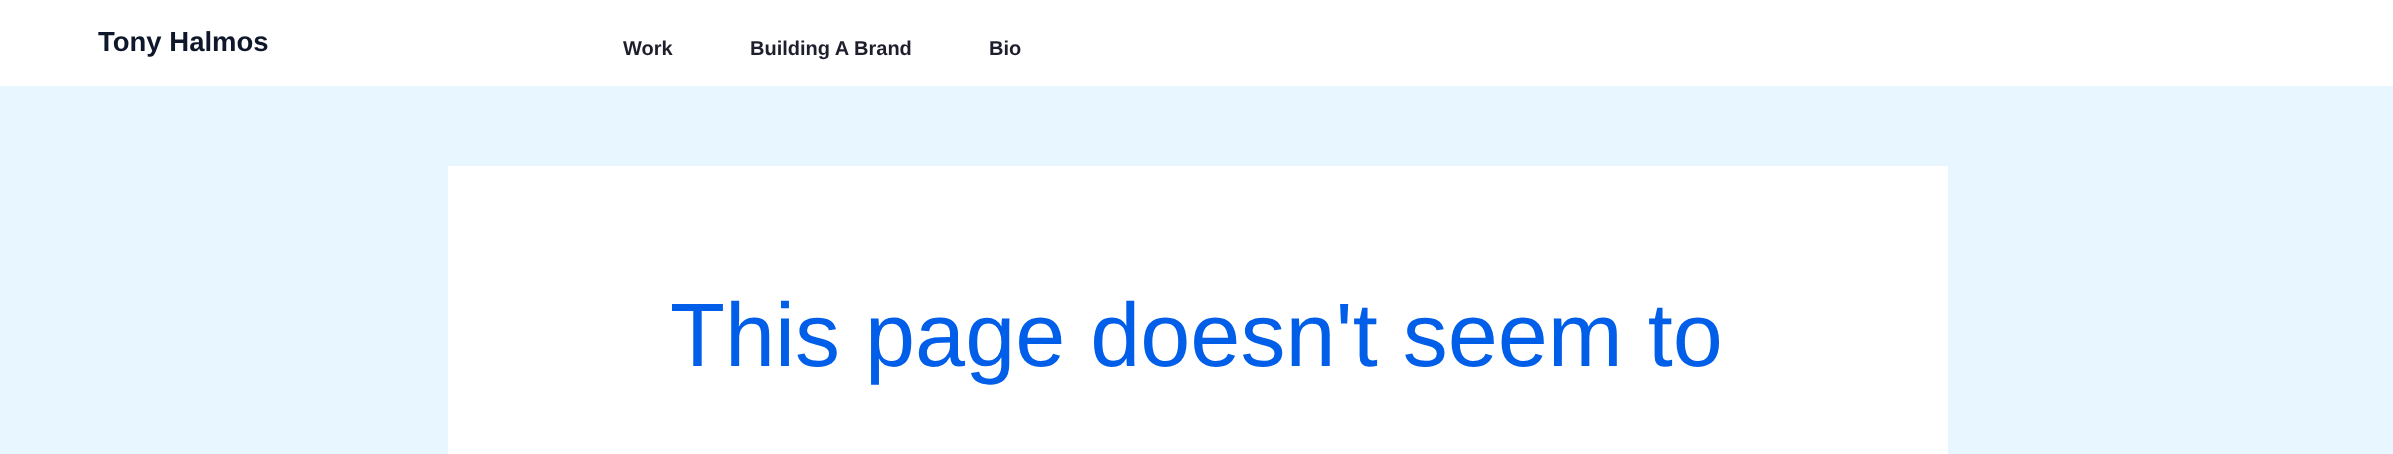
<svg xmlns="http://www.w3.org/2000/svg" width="2393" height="454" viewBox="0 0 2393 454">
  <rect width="100%" height="100%" fill="#e7f6ff"/>
  <rect x="0" y="0" width="2393" height="86" fill="#ffffff"/>
  <text x="98" y="51" font-family="Liberation Sans" font-size="27.5" font-weight="bold" fill="#0f172a">Tony Halmos</text>
  <text x="623" y="55" font-family="Liberation Sans" font-size="20" font-weight="bold" fill="#1e1e2d">Work</text>
  <text x="750" y="55" font-family="Liberation Sans" font-size="20" font-weight="bold" fill="#1e1e2d">Building A Brand</text>
  <text x="989" y="55" font-family="Liberation Sans" font-size="20" font-weight="bold" fill="#1e1e2d">Bio</text>
  <rect x="448" y="166" width="1500" height="288" fill="#ffffff"/>
  <text x="670" y="366" font-family="Liberation Sans" font-size="90" fill="#005ee9">This page doesn't seem to</text>
</svg>
